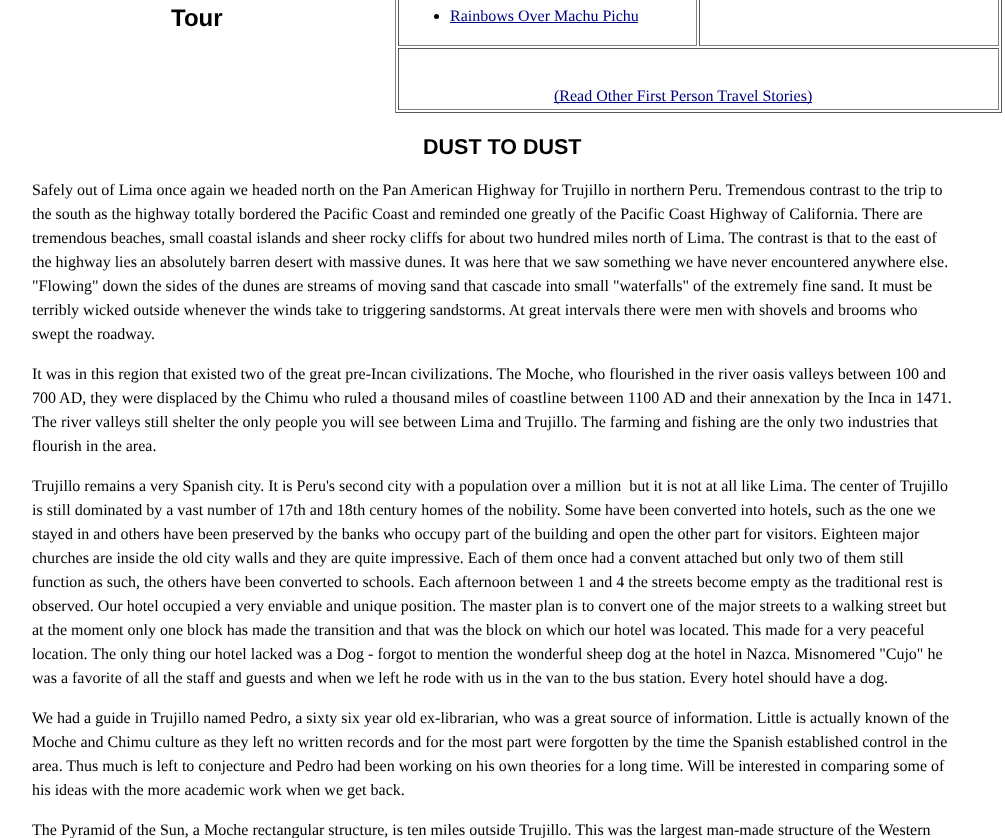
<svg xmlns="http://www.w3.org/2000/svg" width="1005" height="838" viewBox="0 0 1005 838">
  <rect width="100%" height="100%" fill="#ffffff"/>
  <text x="171" y="26" font-family="Liberation Sans" font-size="24" font-weight="bold" fill="#000000">Tour</text>
  <rect x="1001" y="0" width="1" height="113" fill="#555555"/>
  <rect x="395" y="112" width="607" height="1" fill="#555555"/>
  <rect x="395" y="0" width="1" height="113" fill="#808080"/>
  <rect x="696" y="0" width="1" height="46" fill="#808080"/>
  <rect x="398" y="45" width="299" height="1" fill="#808080"/>
  <rect x="398" y="0" width="1" height="46" fill="#555555"/>
  <circle cx="436.5" cy="16.5" r="2.5" fill="#000000"/>
  <text x="450" y="21" font-family="Liberation Serif" font-size="16" fill="#000080">Rainbows Over Machu Pichu</text>
  <rect x="450" y="22" width="188" height="1" fill="#000080"/>
  <rect x="998" y="0" width="1" height="46" fill="#808080"/>
  <rect x="699" y="45" width="300" height="1" fill="#808080"/>
  <rect x="699" y="0" width="1" height="46" fill="#555555"/>
  <rect x="398" y="48" width="601" height="1" fill="#555555"/>
  <rect x="998" y="48" width="1" height="62" fill="#808080"/>
  <rect x="398" y="109" width="601" height="1" fill="#808080"/>
  <rect x="398" y="48" width="1" height="62" fill="#555555"/>
  <rect x="554" y="102" width="258" height="1" fill="#000080"/>
  <text x="554" y="101" font-family="Liberation Serif" font-size="16" fill="#000080">(Read Other First Person Travel Stories)</text>
  <text x="423" y="154" font-family="Liberation Sans" font-size="21.5" font-weight="bold" fill="#000000">DUST TO DUST</text>
  <text x="32" y="195" font-family="Liberation Serif" font-size="16" fill="#000000">Safely out of Lima once again we headed north on the Pan American Highway for Trujillo in northern Peru. Tremendous contrast to the trip to</text>
  <text x="32" y="219" font-family="Liberation Serif" font-size="16" fill="#000000">the south as the highway totally bordered the Pacific Coast and reminded one greatly of the Pacific Coast Highway of California. There are</text>
  <text x="32" y="243" font-family="Liberation Serif" font-size="16" fill="#000000">tremendous beaches, small coastal islands and sheer rocky cliffs for about two hundred miles north of Lima. The contrast is that to the east of</text>
  <text x="32" y="267" font-family="Liberation Serif" font-size="16" fill="#000000">the highway lies an absolutely barren desert with massive dunes. It was here that we saw something we have never encountered anywhere else.</text>
  <text x="32" y="291" font-family="Liberation Serif" font-size="16" fill="#000000">"Flowing" down the sides of the dunes are streams of moving sand that cascade into small "waterfalls" of the extremely fine sand. It must be</text>
  <text x="32" y="315" font-family="Liberation Serif" font-size="16" fill="#000000">terribly wicked outside whenever the winds take to triggering sandstorms. At great intervals there were men with shovels and brooms who</text>
  <text x="32" y="339" font-family="Liberation Serif" font-size="16" fill="#000000">swept the roadway.</text>
  <text x="32" y="379" font-family="Liberation Serif" font-size="16" fill="#000000">It was in this region that existed two of the great pre-Incan civilizations. The Moche, who flourished in the river oasis valleys between 100 and</text>
  <text x="32" y="403" font-family="Liberation Serif" font-size="16" fill="#000000">700 AD, they were displaced by the Chimu who ruled a thousand miles of coastline between 1100 AD and their annexation by the Inca in 1471.</text>
  <text x="32" y="427" font-family="Liberation Serif" font-size="16" fill="#000000">The river valleys still shelter the only people you will see between Lima and Trujillo. The farming and fishing are the only two industries that</text>
  <text x="32" y="451" font-family="Liberation Serif" font-size="16" fill="#000000">flourish in the area.</text>
  <text x="32" y="491" font-family="Liberation Serif" font-size="16" fill="#000000" xml:space="preserve">Trujillo remains a very Spanish city. It is Peru's second city with a population over a million  but it is not at all like Lima. The center of Trujillo</text>
  <text x="32" y="515" font-family="Liberation Serif" font-size="16" fill="#000000">is still dominated by a vast number of 17th and 18th century homes of the nobility. Some have been converted into hotels, such as the one we</text>
  <text x="32" y="539" font-family="Liberation Serif" font-size="16" fill="#000000">stayed in and others have been preserved by the banks who occupy part of the building and open the other part for visitors. Eighteen major</text>
  <text x="32" y="563" font-family="Liberation Serif" font-size="16" fill="#000000">churches are inside the old city walls and they are quite impressive. Each of them once had a convent attached but only two of them still</text>
  <text x="32" y="587" font-family="Liberation Serif" font-size="16" fill="#000000">function as such, the others have been converted to schools. Each afternoon between 1 and 4 the streets become empty as the traditional rest is</text>
  <text x="32" y="611" font-family="Liberation Serif" font-size="16" fill="#000000">observed. Our hotel occupied a very enviable and unique position. The master plan is to convert one of the major streets to a walking street but</text>
  <text x="32" y="635" font-family="Liberation Serif" font-size="16" fill="#000000">at the moment only one block has made the transition and that was the block on which our hotel was located. This made for a very peaceful</text>
  <text x="32" y="659" font-family="Liberation Serif" font-size="16" fill="#000000">location. The only thing our hotel lacked was a Dog - forgot to mention the wonderful sheep dog at the hotel in Nazca. Misnomered "Cujo" he</text>
  <text x="32" y="683" font-family="Liberation Serif" font-size="16" fill="#000000">was a favorite of all the staff and guests and when we left he rode with us in the van to the bus station. Every hotel should have a dog.</text>
  <text x="32" y="723" font-family="Liberation Serif" font-size="16" fill="#000000">We had a guide in Trujillo named Pedro, a sixty six year old ex-librarian, who was a great source of information. Little is actually known of the</text>
  <text x="32" y="747" font-family="Liberation Serif" font-size="16" fill="#000000">Moche and Chimu culture as they left no written records and for the most part were forgotten by the time the Spanish established control in the</text>
  <text x="32" y="771" font-family="Liberation Serif" font-size="16" fill="#000000">area. Thus much is left to conjecture and Pedro had been working on his own theories for a long time. Will be interested in comparing some of</text>
  <text x="32" y="795" font-family="Liberation Serif" font-size="16" fill="#000000">his ideas with the more academic work when we get back.</text>
  <text x="32" y="835" font-family="Liberation Serif" font-size="16" fill="#000000">The Pyramid of the Sun, a Moche rectangular structure, is ten miles outside Trujillo. This was the largest man-made structure of the Western</text>
</svg>
